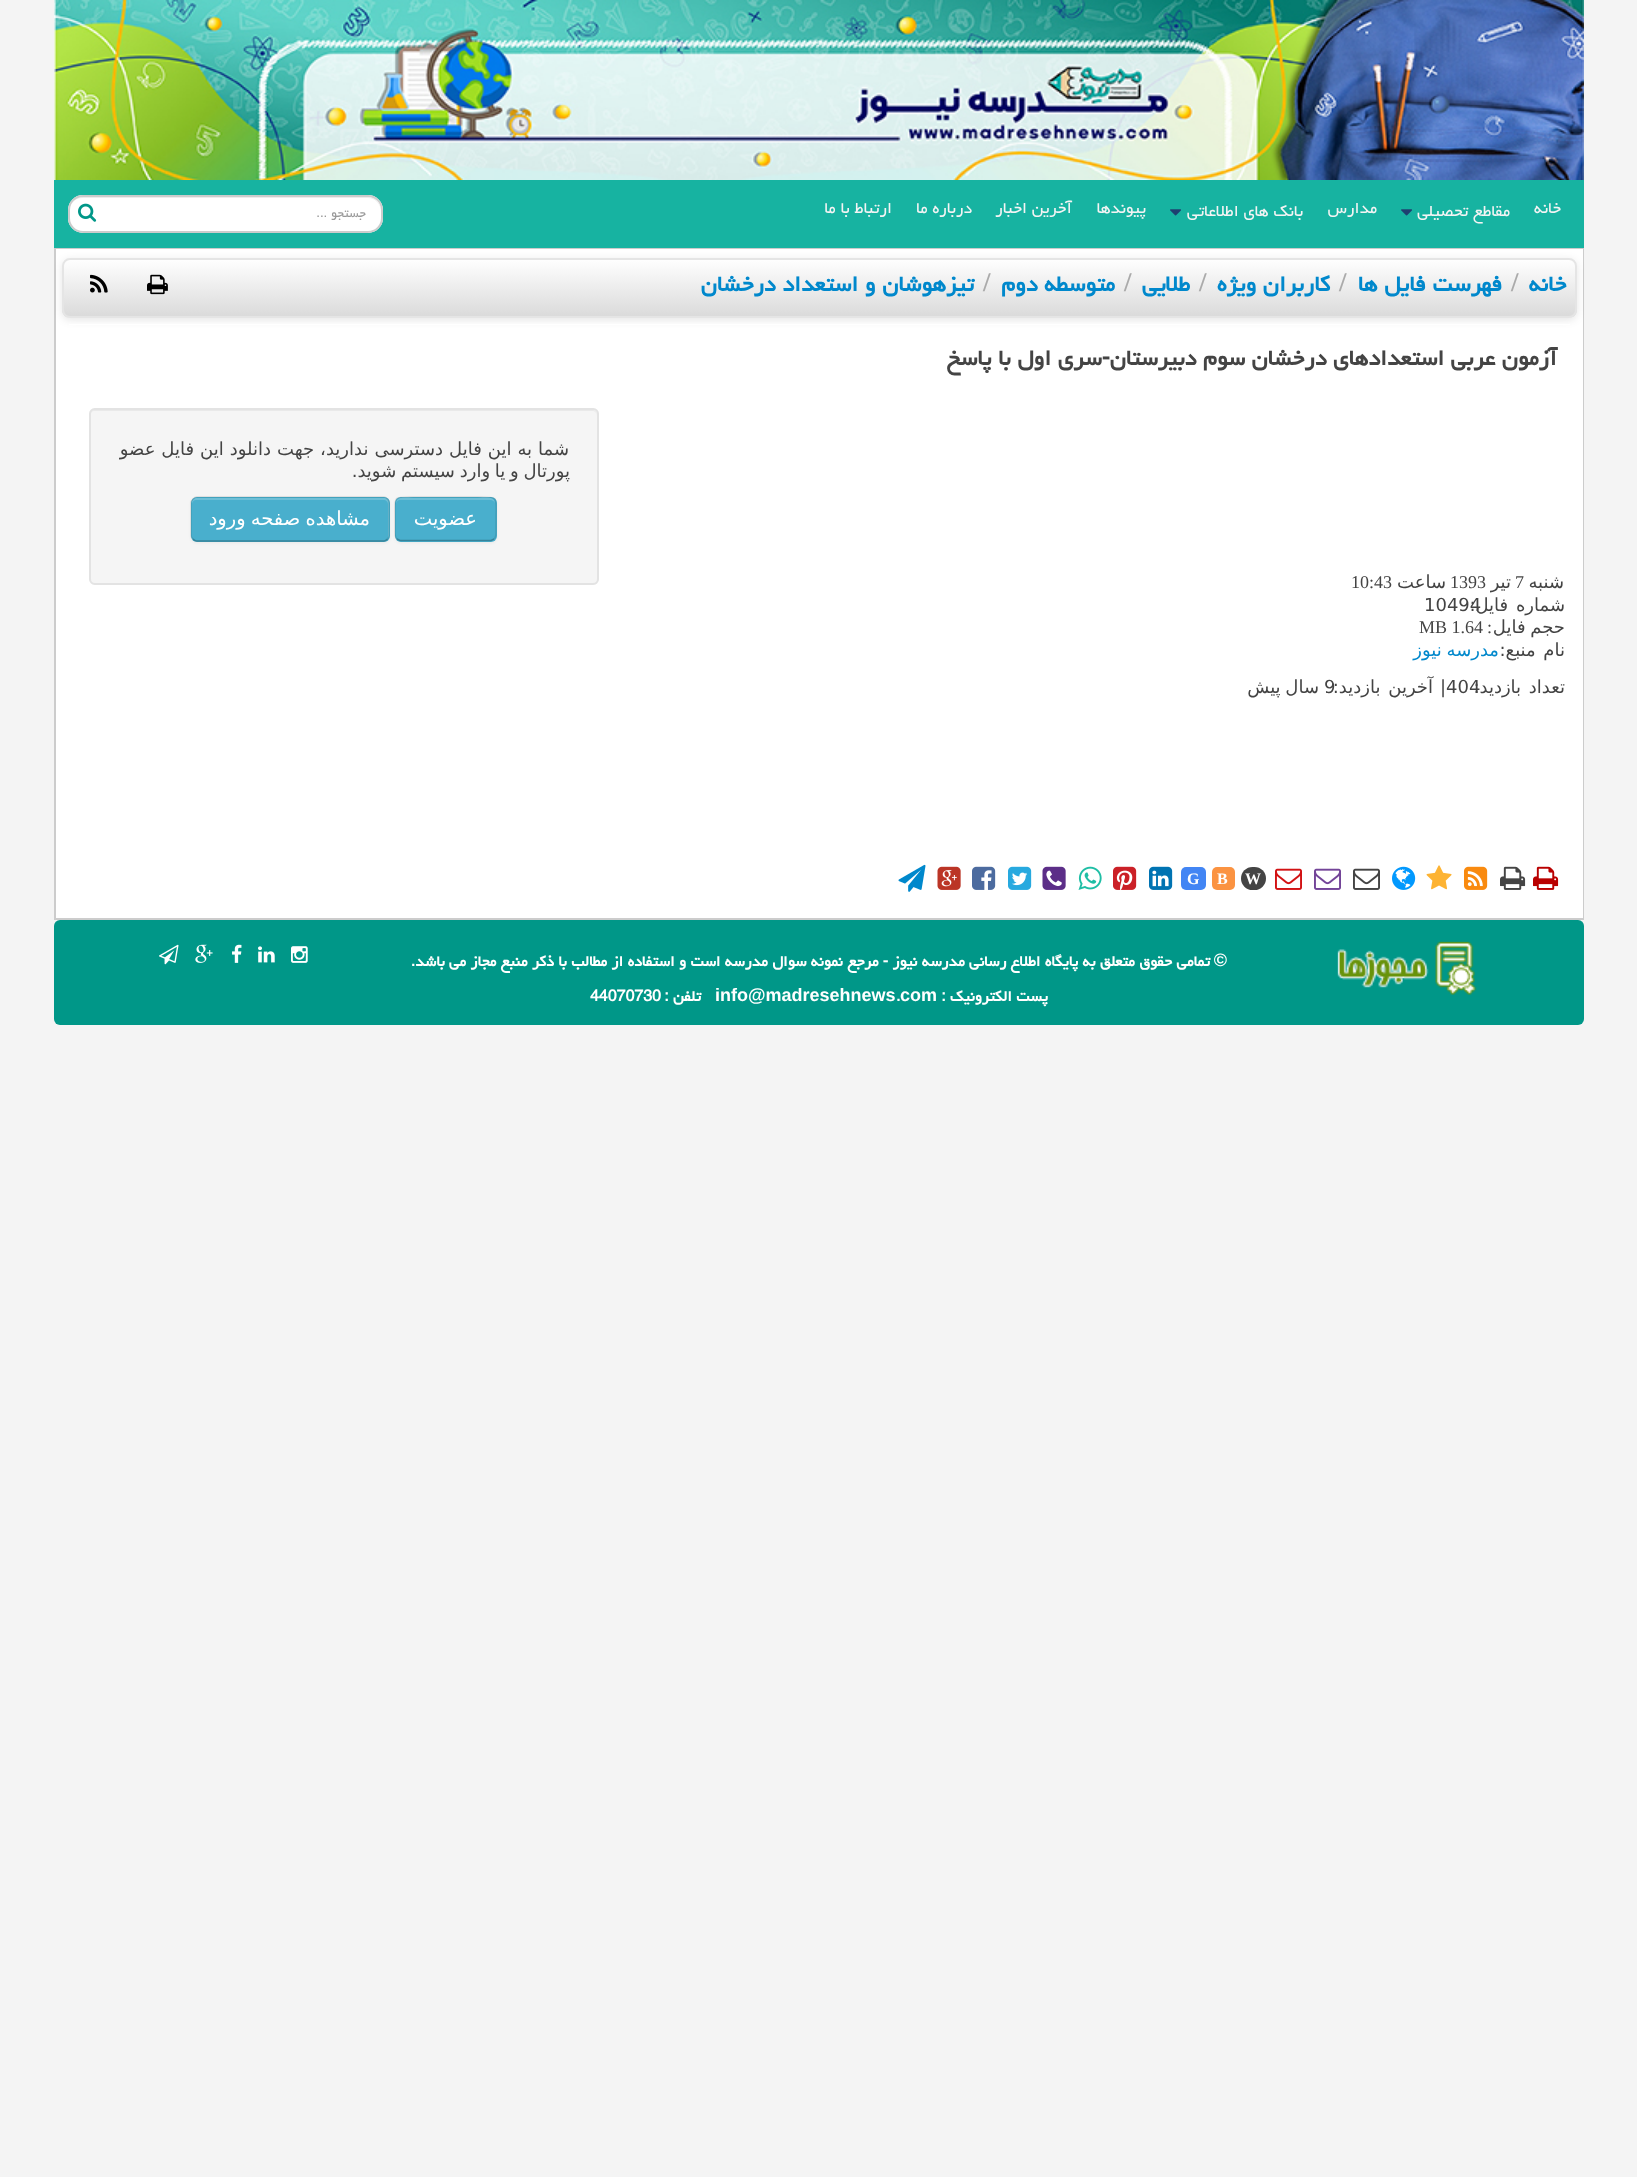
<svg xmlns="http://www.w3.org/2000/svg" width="1637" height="2177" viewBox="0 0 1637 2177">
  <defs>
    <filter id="blur1" x="-50%" y="-200%" width="200%" height="500%"><feGaussianBlur stdDeviation="4"/></filter>
    <clipPath id="clip1"><rect x="62" y="258" width="1515" height="60" rx="8"/></clipPath>
    <linearGradient id="g1" gradientUnits="userSpaceOnUse" x1="819" y1="259" x2="819" y2="317"><stop offset="0" stop-color="#ffffff"/><stop offset="1" stop-color="#dadada"/></linearGradient>
    <filter id="blur2" x="-50%" y="-200%" width="200%" height="500%"><feGaussianBlur stdDeviation="1.5"/></filter>
  </defs>
  <rect width="100%" height="100%" fill="#f4f4f4"/>
  <image x="54" y="0" width="1530" height="180" href="img1.png"/>
  <rect x="54" y="180" width="1530" height="68" fill="#17b3a1"/>
  <text x="1561" y="213" font-family="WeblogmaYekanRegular" font-size="19.5" direction="rtl" fill="#f4f4f4">خانه</text>
  <text x="1510" y="216" font-family="WeblogmaYekanRegular" font-size="19.5" direction="rtl" fill="#f4f4f4">مقاطع تحصیلی</text>
  <image x="1401" y="209" width="11" height="7" href="img2.png"/>
  <text x="1377" y="213" font-family="WeblogmaYekanRegular" font-size="19.5" direction="rtl" fill="#f4f4f4">مدارس</text>
  <text x="1303" y="216" font-family="WeblogmaYekanRegular" font-size="19.5" direction="rtl" fill="#f4f4f4">بانک های اطلاعاتی</text>
  <image x="1170" y="209" width="11" height="7" href="img2.png"/>
  <text x="1146" y="213" font-family="WeblogmaYekanRegular" font-size="19.5" direction="rtl" fill="#f4f4f4">پیوندها</text>
  <text x="1072" y="213" font-family="WeblogmaYekanRegular" font-size="19.5" direction="rtl" fill="#f4f4f4">آخرین اخبار</text>
  <text x="972" y="213" font-family="WeblogmaYekanRegular" font-size="19.5" direction="rtl" fill="#f4f4f4">درباره ما</text>
  <text x="892" y="213" font-family="WeblogmaYekanRegular" font-size="19.5" direction="rtl" fill="#f4f4f4">ارتباط با ما</text>
  <rect x="68" y="195" width="315" height="38" rx="15" fill="#ffffff"/>
  <path d="M82 198H368C375 198 381 204 381 212V211C381 203 375 197 367 197H83C75 197 69 203 69 211V212C69 204 75 198 82 198Z" fill="#ececec"/>
  <rect x="69" y="196" width="313" height="36" rx="14" fill="none" stroke="#cccccc" stroke-width="2"/>
  <text x="366" y="217" font-family="WeblogmaYekanRegular" font-size="15" direction="rtl" fill="#999999">جستجو ...</text>
  <image x="78" y="203" width="19" height="19" href="img3.png"/>
  <rect x="55" y="249" width="1528" height="670" fill="none" stroke="#cccccc" stroke-width="2"/>
  <rect x="56" y="249" width="1527" height="669" fill="#ffffff"/>
  <rect x="62" y="260" width="1515" height="60" rx="8" fill="#000000" fill-opacity="0.1" filter="url(#blur1)"/>
  <g clip-path="url(#clip1)">
    <rect x="62" y="260" width="1515" height="57" fill="url(#g1)"/>
  </g>
  <rect x="63" y="259" width="1513" height="58" rx="7" fill="none" stroke="#e5e5e5" stroke-width="2"/>
  <text x="1566" y="291" font-family="WeblogmaYekanRegular" font-size="27" font-weight="bold" direction="rtl" fill="#0088cc">خانه</text>
  <text x="1511" y="291" font-family="Liberation Serif" font-size="27" font-weight="bold" fill="#aaaaaa">/</text>
  <text x="1502" y="291" font-family="WeblogmaYekanRegular" font-size="27" font-weight="bold" direction="rtl" fill="#0088cc">فهرست فایل ها</text>
  <text x="1339" y="291" font-family="Liberation Serif" font-size="27" font-weight="bold" fill="#aaaaaa">/</text>
  <text x="1330" y="291" font-family="WeblogmaYekanRegular" font-size="27" font-weight="bold" direction="rtl" fill="#0088cc">کاربران ویژه</text>
  <text x="1199" y="291" font-family="Liberation Serif" font-size="27" font-weight="bold" fill="#aaaaaa">/</text>
  <text x="1190" y="291" font-family="WeblogmaYekanRegular" font-size="27" font-weight="bold" direction="rtl" fill="#0088cc">طلایی</text>
  <text x="1124" y="291" font-family="Liberation Serif" font-size="27" font-weight="bold" fill="#aaaaaa">/</text>
  <text x="1115" y="291" font-family="WeblogmaYekanRegular" font-size="27" font-weight="bold" direction="rtl" fill="#0088cc">متوسطه دوم</text>
  <text x="983" y="291" font-family="Liberation Serif" font-size="27" font-weight="bold" fill="#aaaaaa">/</text>
  <text x="974" y="291" font-family="WeblogmaYekanRegular" font-size="27" font-weight="bold" direction="rtl" fill="#0088cc">تیزهوشان و استعداد درخشان</text>
  <image x="147" y="274" width="21" height="21" href="img4.png"/>
  <image x="90" y="274" width="18" height="19" href="img5.png"/>
  <rect x="69" y="324" width="1501" height="1" fill="#ffffff"/>
  <text x="1557" y="365" font-family="WeblogmaYekanRegular" font-size="27" font-weight="bold" direction="rtl" fill="#444444">آزمون عربی استعدادهای درخشان سوم دبیرستان-سری اول با پاسخ</text>
  <rect x="89" y="408" width="510" height="177" rx="6" fill="#f5f5f5"/>
  <path d="M94 411H592C595 411 597 413 597 416V415C597 412 595 410 592 410H95C92 410 90 412 90 415V416C90 413 92 411 94 411Z" fill="#e9e9e9"/>
  <rect x="90" y="409" width="508" height="175" rx="5" fill="none" stroke="#e3e3e3" stroke-width="2"/>
  <text x="569" y="455" word-spacing="0.25" font-family="DejaVu Sans" font-size="18" direction="rtl" fill="#444444">شما به این فایل دسترسی ندارید، جهت دانلود این فایل عضو</text>
  <text x="570" y="477" word-spacing="-1" font-family="DejaVu Sans" font-size="18" direction="rtl" fill="#444444">پورتال و یا وارد سیستم شوید.</text>
  <rect x="395" y="498" width="102" height="45" rx="6" fill="#000000" fill-opacity="0.05" filter="url(#blur2)"/>
  <rect x="395" y="497" width="102" height="45" rx="6" fill="#49afcd"/>
  <path d="M400 500H490C493 500 495 502 495 504C495 494 481 498 475 498H416C410 498 396 494 396 504C396 502 398 500 400 500Z" fill="#6dbfd7"/>
  <path d="M494 539L491 540.5H400L397 539" fill="none" stroke="#37839a" stroke-width="1.5"/>
  <path d="M397 539C394.5 537 395 533 395 530V519C395 495 391.5 497 415.5 497H475.5C499.5 497 496 495 496 519V530C496 533 496.5 537 494 539" fill="none" stroke="#000000" stroke-opacity="0.1" stroke-width="1.5"/>
  <text x="477" y="525" font-family="DejaVu Sans" font-size="19.5" direction="rtl" fill="#ffffff">عضویت</text>
  <rect x="191" y="498" width="199" height="45" rx="6" fill="#000000" fill-opacity="0.05" filter="url(#blur2)"/>
  <rect x="191" y="497" width="199" height="45" rx="6" fill="#49afcd"/>
  <path d="M196 500H384C386 500 388 502 388 504V538C389 537 389 536 389 535V503C389 500 387 498 384 498H197C194 498 192 500 192 503V504C192 502 194 500 196 500Z" fill="#6dbfd7"/>
  <path d="M387.5 539C386.5 540 385.5 541 384 541H196.5C195 541 194 540 193 539" fill="none" stroke="#000000" stroke-opacity="0.25" stroke-width="1.5"/>
  <path d="M193 539C192 538 191 537 191 535.5V502.5C191 501 192 500 193 499C194 498 195 497 196.5 497H384C385.5 497 386.5 498 387.5 499C388.5 500 389 501 389 502.5V535.5C389 537 388.5 538 387.5 539" fill="none" stroke="#000000" stroke-opacity="0.1" stroke-width="1.5"/>
  <text x="370" y="525" word-spacing="-1" font-family="DejaVu Sans" font-size="19.5" direction="rtl" fill="#ffffff">مشاهده صفحه ورود</text>
  <text x="1564" y="588" font-family="DejaVu Sans" font-size="18" direction="rtl" fill="#444444">شنبه</text>
  <text x="1515" y="588" font-family="Liberation Serif" font-size="18" fill="#444444">7</text>
  <text x="1511" y="588" font-family="DejaVu Sans" font-size="18" direction="rtl" fill="#444444">تیر</text>
  <text x="1450" y="588" font-family="Liberation Serif" font-size="18" fill="#444444">1393</text>
  <text x="1446" y="588" font-family="DejaVu Sans" font-size="18" direction="rtl" fill="#444444">ساعت</text>
  <text x="1351" y="588" font-family="Liberation Serif" font-size="18" fill="#444444">10:43</text>
  <text x="1424" y="611" font-family="DejaVu Sans" font-size="18" fill="#444444">10494</text>
  <text x="1565" y="611" word-spacing="2" font-family="DejaVu Sans" font-size="18" direction="rtl" fill="#444444">شماره فایل:</text>
  <text x="1565" y="633" word-spacing="-1" font-family="DejaVu Sans" font-size="18" direction="rtl" fill="#444444">حجم فایل</text>
  <text x="1492" y="633" font-family="Liberation Serif" font-size="18" direction="rtl" fill="#444444">:</text>
  <text x="1419" y="633" font-family="Liberation Serif" font-size="18" fill="#444444">MB 1.64</text>
  <text x="1565" y="656" word-spacing="2" font-family="DejaVu Sans" font-size="18" direction="rtl" fill="#444444">نام منبع:</text>
  <text x="1499" y="656" word-spacing="-1" font-family="DejaVu Sans" font-size="18" direction="rtl" fill="#0088cc">مدرسه نیوز</text>
  <text x="1440" y="693" font-family="DejaVu Sans" font-size="18" fill="#444444">|404</text>
  <text x="1565" y="693" word-spacing="2" font-family="DejaVu Sans" font-size="18" direction="rtl" fill="#444444">تعداد بازدید:</text>
  <text x="1433" y="693" word-spacing="2" font-family="DejaVu Sans" font-size="18" direction="rtl" fill="#444444">آخرین بازدید:</text>
  <text x="1324" y="693" font-family="DejaVu Sans" font-size="18" fill="#444444">9</text>
  <text x="1319" y="693" word-spacing="-1" font-family="DejaVu Sans" font-size="18" direction="rtl" fill="#444444">سال پیش</text>
  <image x="1533" y="866" width="26" height="24" href="img6.png"/>
  <image x="1500" y="866" width="26" height="24" href="img7.png"/>
  <image x="1464" y="866" width="24" height="24" href="img8.png"/>
  <image x="1426" y="865" width="26" height="25" href="img9.png"/>
  <image x="1392" y="866" width="24" height="24" href="img10.png"/>
  <image x="1353" y="868" width="27" height="22" href="img11.png"/>
  <image x="1314" y="868" width="27" height="22" href="img12.png"/>
  <image x="1275" y="868" width="27" height="22" href="img13.png"/>
  <rect x="1241" y="867" width="25" height="23" rx="11.5" fill="#444444"/>
  <text x="1245" y="884" font-family="Liberation Serif" font-size="16" font-weight="bold" fill="#ffffff">W</text>
  <rect x="1212" y="867" width="23" height="23" rx="5" fill="#fb9341"/>
  <text x="1217" y="884" font-family="Liberation Serif" font-size="16" font-weight="bold" fill="#ffffff">B</text>
  <rect x="1181" y="867" width="25" height="23" rx="5" fill="#4285f4"/>
  <text x="1187" y="884" font-family="Liberation Serif" font-size="16" font-weight="bold" fill="#ffffff">G</text>
  <image x="1149" y="866" width="24" height="24" href="img14.png"/>
  <image x="1113" y="866" width="24" height="24" href="img15.png"/>
  <image x="1078" y="866" width="24" height="24" href="img16.png"/>
  <image x="1042" y="866" width="24" height="24" href="img17.png"/>
  <image x="1008" y="866" width="24" height="24" href="img18.png"/>
  <image x="972" y="866" width="24" height="24" href="img19.png"/>
  <image x="937" y="866" width="24" height="24" href="img20.png"/>
  <image x="898" y="864" width="28" height="28" href="img21.png"/>
  <rect x="54" y="920" width="1530" height="105" rx="6" fill="#009788"/>
  <image x="1337" y="941" width="140" height="54" href="img22.png"/>
  <text x="1227" y="966" font-family="Liberation Sans" font-size="18" font-weight="bold" direction="rtl" fill="#ffffff">©</text>
  <text x="1210" y="966" font-family="WeblogmaYekanRegular" font-size="18" font-weight="bold" direction="rtl" fill="#ffffff">تمامی حقوق متعلق به پایگاه اطلاع رسانی مدرسه نیوز - مرجع نمونه سوال مدرسه است و استفاده از مطالب با ذکر منبع مجاز می باشد.</text>
  <image x="291" y="946" width="17" height="17" href="img23.png"/>
  <image x="258" y="946" width="17" height="17" href="img24.png"/>
  <image x="232" y="944" width="10" height="19" href="img25.png"/>
  <image x="195" y="944" width="18" height="19" href="img26.png"/>
  <image x="159" y="944" width="20" height="21" href="img27.png"/>
  <text x="1048" y="1001" font-family="WeblogmaYekanRegular" font-size="18" font-weight="bold" direction="rtl" fill="#ffffff">پست الکترونيک :</text>
  <text x="900" y="1001" font-family="Liberation Sans" font-size="18" font-weight="bold" fill="#ffffff">com</text>
  <text x="896" y="1001" font-family="WeblogmaYekanRegular" font-size="18" font-weight="bold" fill="#ffffff">.</text>
  <text x="715" y="1001" font-family="Liberation Sans" font-size="18" font-weight="bold" fill="#ffffff">info@madresehnews</text>
  <text x="701" y="1001" font-family="WeblogmaYekanRegular" font-size="18" font-weight="bold" direction="rtl" fill="#ffffff">تلفن :</text>
  <text x="590" y="1001" font-family="WeblogmaYekanRegular" font-size="18" font-weight="bold" fill="#ffffff">44070730</text>
</svg>
